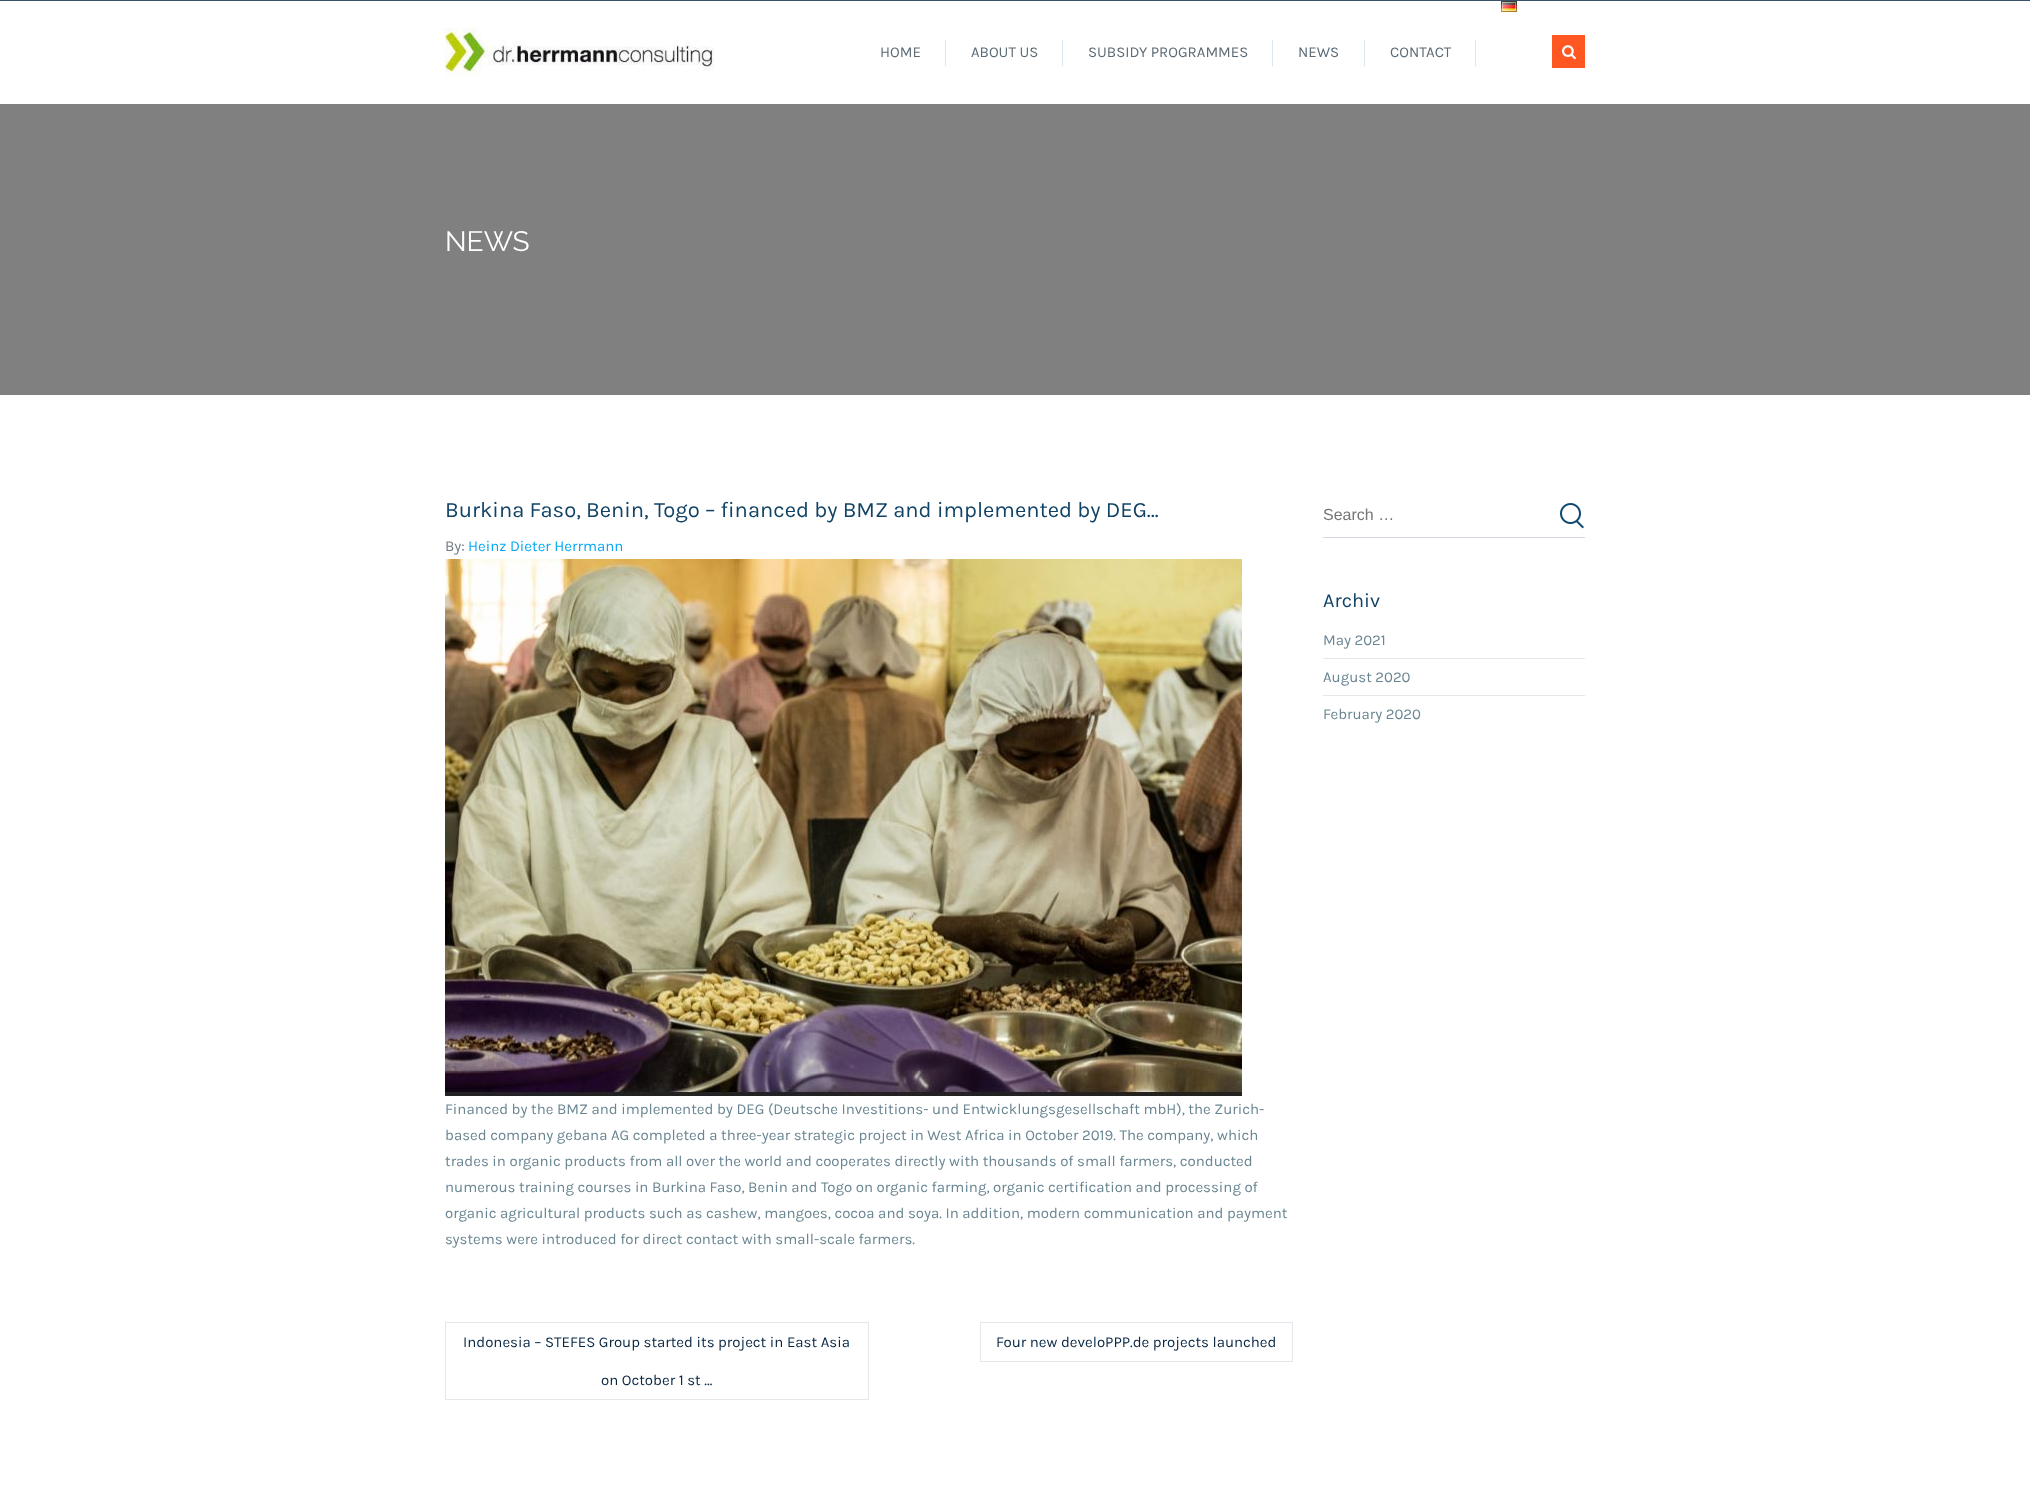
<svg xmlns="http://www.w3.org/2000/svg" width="2030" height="1502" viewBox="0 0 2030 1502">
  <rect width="100%" height="100%" fill="#ffffff"/>
  <rect x="0" y="0" width="2030" height="1" fill="#3a526a"/>
  <image x="445" y="28" width="269" height="50" href="img1.png"/>
  <image x="1501" y="1" width="16" height="11" href="img2.png"/>
  <text x="880" y="57" font-family="Karla" font-size="15" fill="#5b6a75">HOME</text>
  <rect x="945" y="40" width="1" height="26" fill="#d9e6eb"/>
  <text x="971" y="57" font-family="Karla" font-size="15" fill="#5b6a75">ABOUT US</text>
  <rect x="1062" y="40" width="1" height="26" fill="#d9e6eb"/>
  <text x="1088" y="57" font-family="Karla" font-size="15" fill="#5b6a75">SUBSIDY PROGRAMMES</text>
  <rect x="1272" y="40" width="1" height="26" fill="#d9e6eb"/>
  <text x="1298" y="57" font-family="Karla" font-size="15" fill="#5b6a75">NEWS</text>
  <rect x="1364" y="40" width="1" height="26" fill="#d9e6eb"/>
  <text x="1390" y="57" font-family="Karla" font-size="15" fill="#5b6a75">CONTACT</text>
  <rect x="1475" y="40" width="1" height="26" fill="#d9e6eb"/>
  <rect x="1552" y="35" width="33" height="33" fill="#fe5722"/>
  <image x="1562" y="45" width="14" height="15" href="img3.png"/>
  <rect x="0" y="104" width="2030" height="291" fill="#808080"/>
  <text x="445" y="251" font-family="Raleway" font-size="28" fill="#ffffff">NEWS</text>
  <text x="445" y="517" font-family="Karla" font-size="22" fill="#114366">Burkina Faso, Benin, Togo – financed by BMZ and implemented by DEG…</text>
  <text x="445" y="551" font-family="Karla" font-size="15" fill="#707b84">By:</text>
  <text x="468" y="551" font-family="Karla" font-size="15" fill="#03a9f5">Heinz Dieter Herrmann</text>
  <image x="445" y="559" width="797" height="537" href="img4.png"/>
  <text x="445" y="1114" font-family="Karla" font-size="15" fill="#698591">Financed by the BMZ and implemented by DEG (Deutsche Investitions- und Entwicklungsgesellschaft mbH), the Zurich-</text>
  <text x="445" y="1140" font-family="Karla" font-size="15" fill="#698591">based company gebana AG completed a three-year strategic project in West Africa in October 2019. The company, which</text>
  <text x="445" y="1166" font-family="Karla" font-size="15" fill="#698591">trades in organic products from all over the world and cooperates directly with thousands of small farmers, conducted</text>
  <text x="445" y="1192" font-family="Karla" font-size="15" fill="#698591">numerous training courses in Burkina Faso, Benin and Togo on organic farming, organic certification and processing of</text>
  <text x="445" y="1218" font-family="Karla" font-size="15" fill="#698591">organic agricultural products such as cashew, mangoes, cocoa and soya. In addition, modern communication and payment</text>
  <text x="445" y="1244" font-family="Karla" font-size="15" fill="#698591">systems were introduced for direct contact with small-scale farmers.</text>
  <rect x="445.5" y="1322.5" width="423" height="77" fill="none" stroke="#e5e7ed"/>
  <text x="463" y="1347" font-family="Karla" font-size="15" fill="#072643">Indonesia – STEFES Group started its project in East Asia</text>
  <text x="601" y="1385" font-family="Karla" font-size="15" fill="#072643">on October 1 st …</text>
  <rect x="980.5" y="1322.5" width="312" height="39" fill="none" stroke="#e5e7ed"/>
  <text x="996" y="1347" font-family="Karla" font-size="15" fill="#072643">Four new develoPPP.de projects launched</text>
  <rect x="1323" y="537" width="262" height="1" fill="#d5d8e3"/>
  <text x="1323" y="520" font-family="Liberation Sans" font-size="16" fill="#757575">Search …</text>
  <image x="1560" y="503" width="24" height="26" href="img5.png"/>
  <text x="1323" y="607" font-family="Karla" font-size="20" fill="#114366">Archiv</text>
  <rect x="1323" y="658" width="262" height="1" fill="#e5e7ed"/>
  <text x="1323" y="645" font-family="Karla" font-size="15" fill="#698591">May 2021</text>
  <rect x="1323" y="695" width="262" height="1" fill="#e5e7ed"/>
  <text x="1323" y="682" font-family="Karla" font-size="15" fill="#698591">August 2020</text>
  <text x="1323" y="719" font-family="Karla" font-size="15" fill="#698591">February 2020</text>
</svg>
